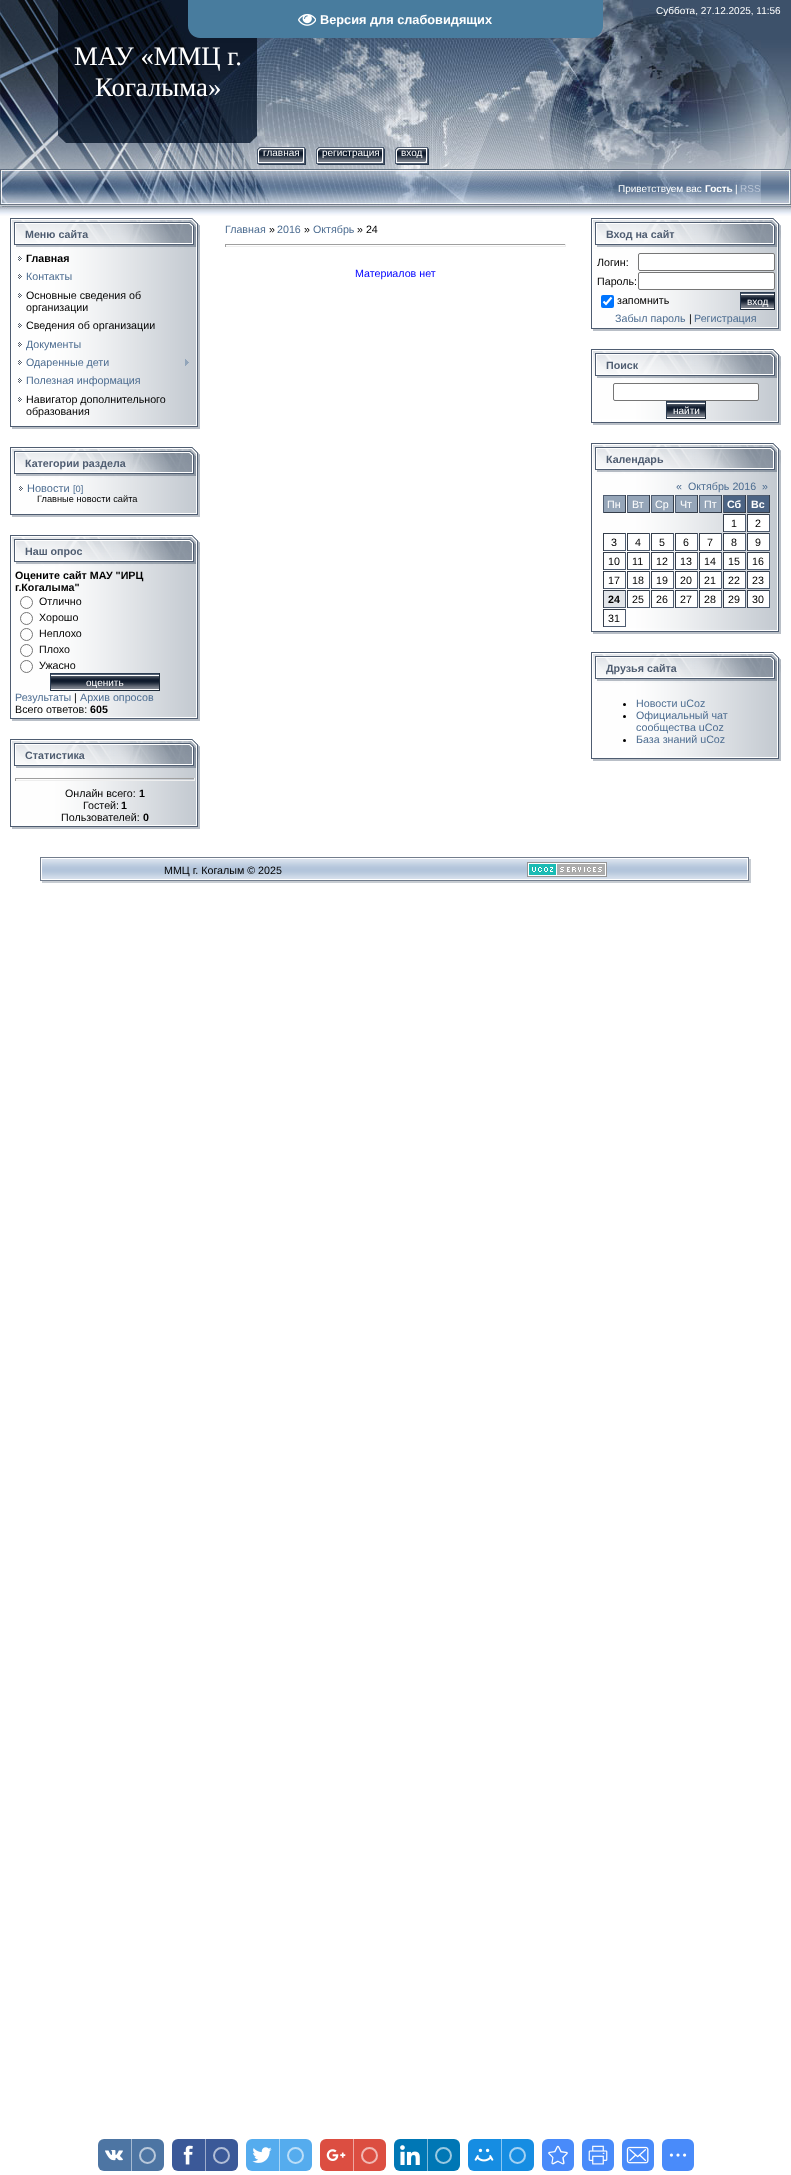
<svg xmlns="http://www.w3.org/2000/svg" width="791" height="2175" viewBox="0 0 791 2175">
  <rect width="100%" height="100%" fill="#ffffff"/>
  <image x="0" y="143" width="791" height="73" href="img1.png"/>
  <image x="0" y="0" width="58" height="143" href="img2.png"/>
  <image x="257" y="0" width="534" height="143" href="img3.png"/>
  <text x="656" y="14" font-family="Liberation Sans" font-size="10" fill="#ffffff">Суббота, 27.12.2025, 11:56</text>
  <image x="58" y="0" width="199" height="143" href="img4.png"/>
  <text x="74" y="65" font-family="Liberation Serif" font-size="26.75" fill="#ffffff">МАУ «ММЦ г.</text>
  <text x="95" y="96" font-family="Liberation Serif" font-size="26.75" fill="#ffffff">Когалыма»</text>
  <image x="0" y="143" width="58" height="26" href="img5.png"/>
  <image x="58" y="143" width="199" height="26" href="img6.png"/>
  <image x="257" y="143" width="533" height="26" href="img7.png"/>
  <image x="261" y="147" width="45" height="18" href="img8.png"/>
  <image x="257" y="147" width="4" height="18" href="img9.png"/>
  <text x="263" y="156" font-family="Liberation Sans" font-size="10" fill="#ffffff">главная</text>
  <image x="302" y="147" width="4" height="17" href="img10.png"/>
  <image x="320" y="147" width="65" height="18" href="img11.png"/>
  <image x="316" y="147" width="4" height="18" href="img9.png"/>
  <text x="322" y="156" font-family="Liberation Sans" font-size="10" fill="#ffffff">регистрация</text>
  <image x="381" y="147" width="4" height="17" href="img10.png"/>
  <image x="399" y="147" width="30" height="18" href="img12.png"/>
  <image x="395" y="147" width="4" height="18" href="img9.png"/>
  <text x="401" y="156" font-family="Liberation Sans" font-size="10" fill="#ffffff">вход</text>
  <image x="425" y="147" width="4" height="17" href="img10.png"/>
  <image x="0" y="169" width="30" height="40" href="img13.png"/>
  <image x="30" y="169" width="731" height="40" href="img14.png"/>
  <text x="618" y="192" font-family="Liberation Sans" font-size="10" fill="#ffffff">Приветствуем вас</text>
  <text x="705" y="192" font-family="Liberation Sans" font-size="10" font-weight="bold" fill="#ffffff">Гость</text>
  <text x="735" y="192" font-family="Liberation Sans" font-size="10" fill="#ffffff">|</text>
  <text x="740" y="192" font-family="Liberation Sans" font-size="10" fill="#bdc8d8">RSS</text>
  <image x="761" y="169" width="30" height="40" href="img15.png"/>
  <image x="10" y="218" width="190" height="31" href="img16.png"/>
  <text x="25" y="238" font-family="Liberation Sans" font-size="10.7" font-weight="bold" fill="#4f5d71">Меню сайта</text>
  <image x="10" y="249" width="190" height="174" href="img17.png"/>
  <image x="18" y="256" width="4" height="5" href="img18.png"/>
  <text x="26" y="262" font-family="Liberation Sans" font-size="10.7" font-weight="bold" fill="#000000">Главная</text>
  <image x="18" y="274" width="4" height="5" href="img18.png"/>
  <text x="26" y="280" font-family="Liberation Sans" font-size="10.7" fill="#4d6d91">Контакты</text>
  <image x="18" y="293" width="4" height="5" href="img18.png"/>
  <text x="26" y="299" font-family="Liberation Sans" font-size="10.7" fill="#000000">Основные сведения об</text>
  <text x="26" y="311" font-family="Liberation Sans" font-size="10.7" fill="#000000">организации</text>
  <image x="18" y="323" width="4" height="5" href="img18.png"/>
  <text x="26" y="329" font-family="Liberation Sans" font-size="10.7" fill="#000000">Сведения об организации</text>
  <image x="18" y="342" width="4" height="5" href="img18.png"/>
  <text x="26" y="348" font-family="Liberation Sans" font-size="10.7" fill="#4d6d91">Документы</text>
  <image x="18" y="360" width="4" height="5" href="img18.png"/>
  <text x="26" y="366" font-family="Liberation Sans" font-size="10.7" fill="#4d6d91">Одаренные дети</text>
  <image x="185" y="359" width="4" height="7" href="img19.png"/>
  <image x="18" y="378" width="4" height="5" href="img18.png"/>
  <text x="26" y="384" font-family="Liberation Sans" font-size="10.7" fill="#4d6d91">Полезная информация</text>
  <image x="18" y="397" width="4" height="5" href="img18.png"/>
  <text x="26" y="403" font-family="Liberation Sans" font-size="10.7" fill="#000000">Навигатор дополнительного</text>
  <text x="26" y="415" font-family="Liberation Sans" font-size="10.7" fill="#000000">образования</text>
  <image x="10" y="423" width="190" height="6" href="img20.png"/>
  <image x="10" y="447" width="190" height="31" href="img16.png"/>
  <text x="25" y="467" font-family="Liberation Sans" font-size="10.7" font-weight="bold" fill="#4f5d71">Категории раздела</text>
  <image x="10" y="478" width="190" height="33" href="img21.png"/>
  <image x="19" y="486" width="4" height="5" href="img18.png"/>
  <text x="27" y="492" font-family="Liberation Sans" font-size="11" fill="#4d6d91">Новости</text>
  <text x="73" y="492" font-family="Liberation Sans" font-size="9.25" fill="#4d6d91">[0]</text>
  <text x="37" y="502" font-family="Liberation Sans" font-size="9.25" fill="#000000">Главные новости сайта</text>
  <image x="10" y="511" width="190" height="6" href="img20.png"/>
  <image x="10" y="535" width="190" height="31" href="img16.png"/>
  <text x="25" y="555" font-family="Liberation Sans" font-size="10.7" font-weight="bold" fill="#4f5d71">Наш опрос</text>
  <image x="10" y="566" width="190" height="149" href="img22.png"/>
  <text x="15" y="579" font-family="Liberation Sans" font-size="10.7" font-weight="bold" fill="#000000">Оцените сайт МАУ "ИРЦ</text>
  <text x="15" y="591" font-family="Liberation Sans" font-size="10.7" font-weight="bold" fill="#000000">г.Когалыма"</text>
  <circle cx="26.5" cy="602.5" r="6" fill="none" stroke="#767676"/>
  <text x="39" y="605" font-family="Liberation Sans" font-size="10.7" fill="#000000">Отлично</text>
  <circle cx="26.5" cy="618.5" r="6" fill="none" stroke="#767676"/>
  <text x="39" y="621" font-family="Liberation Sans" font-size="10.7" fill="#000000">Хорошо</text>
  <circle cx="26.5" cy="634.5" r="6" fill="none" stroke="#767676"/>
  <text x="39" y="637" font-family="Liberation Sans" font-size="10.7" fill="#000000">Неплохо</text>
  <circle cx="26.5" cy="650.5" r="6" fill="none" stroke="#767676"/>
  <text x="39" y="653" font-family="Liberation Sans" font-size="10.7" fill="#000000">Плохо</text>
  <circle cx="26.5" cy="666.5" r="6" fill="none" stroke="#767676"/>
  <text x="39" y="669" font-family="Liberation Sans" font-size="10.7" fill="#000000">Ужасно</text>
  <image x="51" y="673" width="108" height="17" href="img23.png"/>
  <rect x="159" y="673" width="1" height="18" fill="#1d2937"/>
  <rect x="50" y="690" width="110" height="1" fill="#1d2937"/>
  <rect x="50" y="673" width="1" height="18" fill="#2c3d52"/>
  <text x="86" y="686" font-family="Liberation Sans" font-size="10" fill="#ffffff">оценить</text>
  <text x="15" y="701" font-family="Liberation Sans" font-size="10.7" fill="#4d6d91">Результаты</text>
  <text x="74" y="701" font-family="Liberation Sans" font-size="10.7" fill="#000000">|</text>
  <text x="80" y="701" font-family="Liberation Sans" font-size="10.7" fill="#4d6d91">Архив опросов</text>
  <text x="15" y="713" font-family="Liberation Sans" font-size="10.7" fill="#000000">Всего ответов:</text>
  <text x="90" y="713" font-family="Liberation Sans" font-size="10.7" font-weight="bold" fill="#000000">605</text>
  <image x="10" y="715" width="190" height="6" href="img20.png"/>
  <image x="10" y="739" width="190" height="31" href="img16.png"/>
  <text x="25" y="759" font-family="Liberation Sans" font-size="10.7" font-weight="bold" fill="#4f5d71">Статистика</text>
  <image x="10" y="770" width="190" height="53" href="img24.png"/>
  <rect x="15" y="778" width="180" height="1" fill="#9f9f9f"/>
  <rect x="194" y="778" width="1" height="3" fill="#eeeeee"/>
  <rect x="15" y="780" width="180" height="1" fill="#eeeeee"/>
  <rect x="15" y="778" width="1" height="3" fill="#9f9f9f"/>
  <text x="65" y="797" font-family="Liberation Sans" font-size="10.7" fill="#000000">Онлайн всего:</text>
  <text x="139" y="797" font-family="Liberation Sans" font-size="10.7" font-weight="bold" fill="#000000">1</text>
  <text x="83" y="809" font-family="Liberation Sans" font-size="10.7" fill="#000000">Гостей:</text>
  <text x="121" y="809" font-family="Liberation Sans" font-size="10.7" font-weight="bold" fill="#000000">1</text>
  <text x="61" y="821" font-family="Liberation Sans" font-size="10.7" fill="#000000">Пользователей:</text>
  <text x="143" y="821" font-family="Liberation Sans" font-size="10.7" font-weight="bold" fill="#000000">0</text>
  <image x="10" y="823" width="190" height="6" href="img20.png"/>
  <text x="225" y="233" font-family="Liberation Sans" font-size="10.7" fill="#4d6d91">Главная</text>
  <text x="269" y="233" font-family="Liberation Sans" font-size="10.7" fill="#000000">»</text>
  <text x="277" y="233" font-family="Liberation Sans" font-size="10.7" fill="#4d6d91">2016</text>
  <text x="304" y="233" font-family="Liberation Sans" font-size="10.7" fill="#000000">»</text>
  <text x="313" y="233" font-family="Liberation Sans" font-size="10.7" fill="#4d6d91">Октябрь</text>
  <text x="357" y="233" font-family="Liberation Sans" font-size="10.7" fill="#000000">» 24</text>
  <rect x="225" y="244" width="341" height="1" fill="#9f9f9f"/>
  <rect x="565" y="244" width="1" height="3" fill="#eeeeee"/>
  <rect x="225" y="246" width="341" height="1" fill="#eeeeee"/>
  <rect x="225" y="244" width="1" height="3" fill="#9f9f9f"/>
  <text x="355" y="277" font-family="Liberation Sans" font-size="10.7" fill="#0000ff">Материалов нет</text>
  <image x="591" y="218" width="190" height="31" href="img16.png"/>
  <text x="606" y="238" font-family="Liberation Sans" font-size="10.7" font-weight="bold" fill="#4f5d71">Вход на сайт</text>
  <image x="591" y="249" width="190" height="76" href="img25.png"/>
  <text x="597" y="266" font-family="Liberation Sans" font-size="10.7" fill="#000000">Логин:</text>
  <rect x="638.5" y="253.5" width="136" height="17" rx="1.5" fill="#ffffff" stroke="#767676"/>
  <text x="597" y="285" font-family="Liberation Sans" font-size="10.7" fill="#000000">Пароль:</text>
  <rect x="638.5" y="272.5" width="136" height="17" rx="1.5" fill="#ffffff" stroke="#767676"/>
  <rect x="601" y="295" width="13" height="13" rx="2" fill="#0075ff"/>
  <path d="M603.5 301.5L606 304L611.5 297.5" fill="none" stroke="#ffffff" stroke-width="2.1"/>
  <text x="617" y="304" font-family="Liberation Sans" font-size="10.7" fill="#000000">запомнить</text>
  <image x="741" y="292" width="33" height="17" href="img26.png"/>
  <rect x="774" y="292" width="1" height="18" fill="#1d2937"/>
  <rect x="740" y="309" width="35" height="1" fill="#1d2937"/>
  <rect x="740" y="292" width="1" height="18" fill="#2c3d52"/>
  <text x="747" y="305" font-family="Liberation Sans" font-size="10" fill="#ffffff">вход</text>
  <text x="615" y="322" font-family="Liberation Sans" font-size="10.7" fill="#4d6d91">Забыл пароль</text>
  <text x="689" y="322" font-family="Liberation Sans" font-size="10.7" fill="#000000">|</text>
  <text x="694" y="322" font-family="Liberation Sans" font-size="10.7" fill="#4d6d91">Регистрация</text>
  <image x="591" y="325" width="190" height="6" href="img20.png"/>
  <image x="591" y="349" width="190" height="31" href="img16.png"/>
  <text x="606" y="369" font-family="Liberation Sans" font-size="10.7" font-weight="bold" fill="#4f5d71">Поиск</text>
  <image x="591" y="380" width="190" height="39" href="img27.png"/>
  <rect x="613.5" y="383.5" width="145" height="17" rx="1.5" fill="#ffffff" stroke="#767676"/>
  <image x="667" y="401" width="38" height="17" href="img28.png"/>
  <rect x="705" y="401" width="1" height="18" fill="#1d2937"/>
  <rect x="666" y="418" width="40" height="1" fill="#1d2937"/>
  <rect x="666" y="401" width="1" height="18" fill="#2c3d52"/>
  <text x="673" y="414" font-family="Liberation Sans" font-size="10" fill="#ffffff">найти</text>
  <image x="591" y="419" width="190" height="6" href="img20.png"/>
  <image x="591" y="443" width="190" height="31" href="img16.png"/>
  <text x="606" y="463" font-family="Liberation Sans" font-size="10.7" font-weight="bold" fill="#4f5d71">Календарь</text>
  <image x="591" y="474" width="190" height="154" href="img29.png"/>
  <text x="676" y="490" font-family="Liberation Sans" font-size="10.7" fill="#4d6d91">«</text>
  <text x="688" y="490" font-family="Liberation Sans" font-size="10.7" fill="#4d6d91">Октябрь 2016</text>
  <text x="762" y="490" font-family="Liberation Sans" font-size="10.7" fill="#4d6d91">»</text>
  <rect x="604" y="496" width="21" height="16" fill="#95a5b8"/>
  <rect x="603" y="495" width="23" height="1" fill="#4f5d71"/>
  <rect x="625" y="495" width="1" height="18" fill="#353e4b"/>
  <rect x="603" y="512" width="23" height="1" fill="#353e4b"/>
  <rect x="603" y="495" width="1" height="18" fill="#4f5d71"/>
  <text x="607" y="508" font-family="Liberation Sans" font-size="10.7" fill="#ffffff">Пн</text>
  <rect x="628" y="496" width="21" height="16" fill="#95a5b8"/>
  <rect x="627" y="495" width="23" height="1" fill="#4f5d71"/>
  <rect x="649" y="495" width="1" height="18" fill="#353e4b"/>
  <rect x="627" y="512" width="23" height="1" fill="#353e4b"/>
  <rect x="627" y="495" width="1" height="18" fill="#4f5d71"/>
  <text x="632" y="508" font-family="Liberation Sans" font-size="10.7" fill="#ffffff">Вт</text>
  <rect x="652" y="496" width="21" height="16" fill="#95a5b8"/>
  <rect x="651" y="495" width="23" height="1" fill="#4f5d71"/>
  <rect x="673" y="495" width="1" height="18" fill="#353e4b"/>
  <rect x="651" y="512" width="23" height="1" fill="#353e4b"/>
  <rect x="651" y="495" width="1" height="18" fill="#4f5d71"/>
  <text x="655" y="508" font-family="Liberation Sans" font-size="10.7" fill="#ffffff">Ср</text>
  <rect x="676" y="496" width="21" height="16" fill="#95a5b8"/>
  <rect x="675" y="495" width="23" height="1" fill="#4f5d71"/>
  <rect x="697" y="495" width="1" height="18" fill="#353e4b"/>
  <rect x="675" y="512" width="23" height="1" fill="#353e4b"/>
  <rect x="675" y="495" width="1" height="18" fill="#4f5d71"/>
  <text x="680" y="508" font-family="Liberation Sans" font-size="10.7" fill="#ffffff">Чт</text>
  <rect x="700" y="496" width="21" height="16" fill="#95a5b8"/>
  <rect x="699" y="495" width="23" height="1" fill="#4f5d71"/>
  <rect x="721" y="495" width="1" height="18" fill="#353e4b"/>
  <rect x="699" y="512" width="23" height="1" fill="#353e4b"/>
  <rect x="699" y="495" width="1" height="18" fill="#4f5d71"/>
  <text x="704" y="508" font-family="Liberation Sans" font-size="10.7" fill="#ffffff">Пт</text>
  <rect x="724" y="496" width="21" height="16" fill="#4b6383"/>
  <rect x="723" y="495" width="23" height="1" fill="#4f5d71"/>
  <rect x="745" y="495" width="1" height="18" fill="#353e4b"/>
  <rect x="723" y="512" width="23" height="1" fill="#353e4b"/>
  <rect x="723" y="495" width="1" height="18" fill="#4f5d71"/>
  <text x="727" y="508" font-family="Liberation Sans" font-size="10.7" font-weight="bold" fill="#ffffff">Сб</text>
  <rect x="748" y="496" width="21" height="16" fill="#4b6383"/>
  <rect x="747" y="495" width="23" height="1" fill="#4f5d71"/>
  <rect x="769" y="495" width="1" height="18" fill="#353e4b"/>
  <rect x="747" y="512" width="23" height="1" fill="#353e4b"/>
  <rect x="747" y="495" width="1" height="18" fill="#4f5d71"/>
  <text x="751" y="508" font-family="Liberation Sans" font-size="10.7" font-weight="bold" fill="#ffffff">Вс</text>
  <rect x="724" y="515" width="21" height="16" fill="#ffffff"/>
  <rect x="723" y="514" width="23" height="1" fill="#353e4b"/>
  <rect x="745" y="514" width="1" height="18" fill="#4f5d71"/>
  <rect x="723" y="531" width="23" height="1" fill="#4f5d71"/>
  <rect x="723" y="514" width="1" height="18" fill="#353e4b"/>
  <text x="731" y="527" font-family="Liberation Sans" font-size="10.7" fill="#000000">1</text>
  <rect x="748" y="515" width="21" height="16" fill="#ffffff"/>
  <rect x="747" y="514" width="23" height="1" fill="#353e4b"/>
  <rect x="769" y="514" width="1" height="18" fill="#4f5d71"/>
  <rect x="747" y="531" width="23" height="1" fill="#4f5d71"/>
  <rect x="747" y="514" width="1" height="18" fill="#353e4b"/>
  <text x="755" y="527" font-family="Liberation Sans" font-size="10.7" fill="#000000">2</text>
  <rect x="603" y="533" width="23" height="1" fill="#353e4b"/>
  <rect x="625" y="533" width="1" height="18" fill="#4f5d71"/>
  <rect x="603" y="550" width="23" height="1" fill="#4f5d71"/>
  <rect x="603" y="533" width="1" height="18" fill="#353e4b"/>
  <text x="611" y="546" font-family="Liberation Sans" font-size="10.7" fill="#000000">3</text>
  <rect x="641" y="534" width="8" height="16" fill="#ffffff"/>
  <rect x="627" y="533" width="23" height="1" fill="#353e4b"/>
  <rect x="649" y="533" width="1" height="18" fill="#4f5d71"/>
  <rect x="627" y="550" width="23" height="1" fill="#4f5d71"/>
  <rect x="627" y="533" width="1" height="18" fill="#353e4b"/>
  <text x="635" y="546" font-family="Liberation Sans" font-size="10.7" fill="#000000">4</text>
  <rect x="652" y="534" width="21" height="16" fill="#ffffff"/>
  <rect x="651" y="533" width="23" height="1" fill="#353e4b"/>
  <rect x="673" y="533" width="1" height="18" fill="#4f5d71"/>
  <rect x="651" y="550" width="23" height="1" fill="#4f5d71"/>
  <rect x="651" y="533" width="1" height="18" fill="#353e4b"/>
  <text x="659" y="546" font-family="Liberation Sans" font-size="10.7" fill="#000000">5</text>
  <rect x="676" y="534" width="21" height="16" fill="#ffffff"/>
  <rect x="675" y="533" width="23" height="1" fill="#353e4b"/>
  <rect x="697" y="533" width="1" height="18" fill="#4f5d71"/>
  <rect x="675" y="550" width="23" height="1" fill="#4f5d71"/>
  <rect x="675" y="533" width="1" height="18" fill="#353e4b"/>
  <text x="683" y="546" font-family="Liberation Sans" font-size="10.7" fill="#000000">6</text>
  <rect x="700" y="534" width="21" height="16" fill="#ffffff"/>
  <rect x="699" y="533" width="23" height="1" fill="#353e4b"/>
  <rect x="721" y="533" width="1" height="18" fill="#4f5d71"/>
  <rect x="699" y="550" width="23" height="1" fill="#4f5d71"/>
  <rect x="699" y="533" width="1" height="18" fill="#353e4b"/>
  <text x="707" y="546" font-family="Liberation Sans" font-size="10.7" fill="#000000">7</text>
  <rect x="724" y="534" width="21" height="16" fill="#ffffff"/>
  <rect x="723" y="533" width="23" height="1" fill="#353e4b"/>
  <rect x="745" y="533" width="1" height="18" fill="#4f5d71"/>
  <rect x="723" y="550" width="23" height="1" fill="#4f5d71"/>
  <rect x="723" y="533" width="1" height="18" fill="#353e4b"/>
  <text x="731" y="546" font-family="Liberation Sans" font-size="10.7" fill="#000000">8</text>
  <rect x="748" y="534" width="21" height="16" fill="#ffffff"/>
  <rect x="747" y="533" width="23" height="1" fill="#353e4b"/>
  <rect x="769" y="533" width="1" height="18" fill="#4f5d71"/>
  <rect x="747" y="550" width="23" height="1" fill="#4f5d71"/>
  <rect x="747" y="533" width="1" height="18" fill="#353e4b"/>
  <text x="755" y="546" font-family="Liberation Sans" font-size="10.7" fill="#000000">9</text>
  <rect x="603" y="552" width="23" height="1" fill="#353e4b"/>
  <rect x="625" y="552" width="1" height="18" fill="#4f5d71"/>
  <rect x="603" y="569" width="23" height="1" fill="#4f5d71"/>
  <rect x="603" y="552" width="1" height="18" fill="#353e4b"/>
  <text x="608" y="565" font-family="Liberation Sans" font-size="10.7" fill="#000000">10</text>
  <rect x="641" y="553" width="8" height="16" fill="#ffffff"/>
  <rect x="627" y="552" width="23" height="1" fill="#353e4b"/>
  <rect x="649" y="552" width="1" height="18" fill="#4f5d71"/>
  <rect x="627" y="569" width="23" height="1" fill="#4f5d71"/>
  <rect x="627" y="552" width="1" height="18" fill="#353e4b"/>
  <text x="632" y="565" font-family="Liberation Sans" font-size="10.7" fill="#000000">11</text>
  <rect x="652" y="553" width="21" height="16" fill="#ffffff"/>
  <rect x="651" y="552" width="23" height="1" fill="#353e4b"/>
  <rect x="673" y="552" width="1" height="18" fill="#4f5d71"/>
  <rect x="651" y="569" width="23" height="1" fill="#4f5d71"/>
  <rect x="651" y="552" width="1" height="18" fill="#353e4b"/>
  <text x="656" y="565" font-family="Liberation Sans" font-size="10.7" fill="#000000">12</text>
  <rect x="676" y="553" width="21" height="16" fill="#ffffff"/>
  <rect x="675" y="552" width="23" height="1" fill="#353e4b"/>
  <rect x="697" y="552" width="1" height="18" fill="#4f5d71"/>
  <rect x="675" y="569" width="23" height="1" fill="#4f5d71"/>
  <rect x="675" y="552" width="1" height="18" fill="#353e4b"/>
  <text x="680" y="565" font-family="Liberation Sans" font-size="10.7" fill="#000000">13</text>
  <rect x="700" y="553" width="21" height="16" fill="#ffffff"/>
  <rect x="699" y="552" width="23" height="1" fill="#353e4b"/>
  <rect x="721" y="552" width="1" height="18" fill="#4f5d71"/>
  <rect x="699" y="569" width="23" height="1" fill="#4f5d71"/>
  <rect x="699" y="552" width="1" height="18" fill="#353e4b"/>
  <text x="704" y="565" font-family="Liberation Sans" font-size="10.7" fill="#000000">14</text>
  <rect x="724" y="553" width="21" height="16" fill="#ffffff"/>
  <rect x="723" y="552" width="23" height="1" fill="#353e4b"/>
  <rect x="745" y="552" width="1" height="18" fill="#4f5d71"/>
  <rect x="723" y="569" width="23" height="1" fill="#4f5d71"/>
  <rect x="723" y="552" width="1" height="18" fill="#353e4b"/>
  <text x="728" y="565" font-family="Liberation Sans" font-size="10.7" fill="#000000">15</text>
  <rect x="748" y="553" width="21" height="16" fill="#ffffff"/>
  <rect x="747" y="552" width="23" height="1" fill="#353e4b"/>
  <rect x="769" y="552" width="1" height="18" fill="#4f5d71"/>
  <rect x="747" y="569" width="23" height="1" fill="#4f5d71"/>
  <rect x="747" y="552" width="1" height="18" fill="#353e4b"/>
  <text x="752" y="565" font-family="Liberation Sans" font-size="10.7" fill="#000000">16</text>
  <rect x="603" y="571" width="23" height="1" fill="#353e4b"/>
  <rect x="625" y="571" width="1" height="18" fill="#4f5d71"/>
  <rect x="603" y="588" width="23" height="1" fill="#4f5d71"/>
  <rect x="603" y="571" width="1" height="18" fill="#353e4b"/>
  <text x="608" y="584" font-family="Liberation Sans" font-size="10.7" fill="#000000">17</text>
  <rect x="641" y="572" width="8" height="16" fill="#ffffff"/>
  <rect x="627" y="571" width="23" height="1" fill="#353e4b"/>
  <rect x="649" y="571" width="1" height="18" fill="#4f5d71"/>
  <rect x="627" y="588" width="23" height="1" fill="#4f5d71"/>
  <rect x="627" y="571" width="1" height="18" fill="#353e4b"/>
  <text x="632" y="584" font-family="Liberation Sans" font-size="10.7" fill="#000000">18</text>
  <rect x="652" y="572" width="21" height="16" fill="#ffffff"/>
  <rect x="651" y="571" width="23" height="1" fill="#353e4b"/>
  <rect x="673" y="571" width="1" height="18" fill="#4f5d71"/>
  <rect x="651" y="588" width="23" height="1" fill="#4f5d71"/>
  <rect x="651" y="571" width="1" height="18" fill="#353e4b"/>
  <text x="656" y="584" font-family="Liberation Sans" font-size="10.7" fill="#000000">19</text>
  <rect x="676" y="572" width="21" height="16" fill="#ffffff"/>
  <rect x="675" y="571" width="23" height="1" fill="#353e4b"/>
  <rect x="697" y="571" width="1" height="18" fill="#4f5d71"/>
  <rect x="675" y="588" width="23" height="1" fill="#4f5d71"/>
  <rect x="675" y="571" width="1" height="18" fill="#353e4b"/>
  <text x="680" y="584" font-family="Liberation Sans" font-size="10.7" fill="#000000">20</text>
  <rect x="700" y="572" width="21" height="16" fill="#ffffff"/>
  <rect x="699" y="571" width="23" height="1" fill="#353e4b"/>
  <rect x="721" y="571" width="1" height="18" fill="#4f5d71"/>
  <rect x="699" y="588" width="23" height="1" fill="#4f5d71"/>
  <rect x="699" y="571" width="1" height="18" fill="#353e4b"/>
  <text x="704" y="584" font-family="Liberation Sans" font-size="10.7" fill="#000000">21</text>
  <rect x="724" y="572" width="21" height="16" fill="#ffffff"/>
  <rect x="723" y="571" width="23" height="1" fill="#353e4b"/>
  <rect x="745" y="571" width="1" height="18" fill="#4f5d71"/>
  <rect x="723" y="588" width="23" height="1" fill="#4f5d71"/>
  <rect x="723" y="571" width="1" height="18" fill="#353e4b"/>
  <text x="728" y="584" font-family="Liberation Sans" font-size="10.7" fill="#000000">22</text>
  <rect x="748" y="572" width="21" height="16" fill="#ffffff"/>
  <rect x="747" y="571" width="23" height="1" fill="#353e4b"/>
  <rect x="769" y="571" width="1" height="18" fill="#4f5d71"/>
  <rect x="747" y="588" width="23" height="1" fill="#4f5d71"/>
  <rect x="747" y="571" width="1" height="18" fill="#353e4b"/>
  <text x="752" y="584" font-family="Liberation Sans" font-size="10.7" fill="#000000">23</text>
  <rect x="604" y="591" width="21" height="16" fill="#e2e5e9"/>
  <rect x="603" y="590" width="23" height="1" fill="#353e4b"/>
  <rect x="625" y="590" width="1" height="18" fill="#4f5d71"/>
  <rect x="603" y="607" width="23" height="1" fill="#4f5d71"/>
  <rect x="603" y="590" width="1" height="18" fill="#353e4b"/>
  <text x="608" y="603" font-family="Liberation Sans" font-size="10.7" font-weight="bold" fill="#000000">24</text>
  <rect x="641" y="591" width="8" height="16" fill="#ffffff"/>
  <rect x="627" y="590" width="23" height="1" fill="#353e4b"/>
  <rect x="649" y="590" width="1" height="18" fill="#4f5d71"/>
  <rect x="627" y="607" width="23" height="1" fill="#4f5d71"/>
  <rect x="627" y="590" width="1" height="18" fill="#353e4b"/>
  <text x="632" y="603" font-family="Liberation Sans" font-size="10.7" fill="#000000">25</text>
  <rect x="652" y="591" width="21" height="16" fill="#ffffff"/>
  <rect x="651" y="590" width="23" height="1" fill="#353e4b"/>
  <rect x="673" y="590" width="1" height="18" fill="#4f5d71"/>
  <rect x="651" y="607" width="23" height="1" fill="#4f5d71"/>
  <rect x="651" y="590" width="1" height="18" fill="#353e4b"/>
  <text x="656" y="603" font-family="Liberation Sans" font-size="10.7" fill="#000000">26</text>
  <rect x="676" y="591" width="21" height="16" fill="#ffffff"/>
  <rect x="675" y="590" width="23" height="1" fill="#353e4b"/>
  <rect x="697" y="590" width="1" height="18" fill="#4f5d71"/>
  <rect x="675" y="607" width="23" height="1" fill="#4f5d71"/>
  <rect x="675" y="590" width="1" height="18" fill="#353e4b"/>
  <text x="680" y="603" font-family="Liberation Sans" font-size="10.7" fill="#000000">27</text>
  <rect x="700" y="591" width="21" height="16" fill="#ffffff"/>
  <rect x="699" y="590" width="23" height="1" fill="#353e4b"/>
  <rect x="721" y="590" width="1" height="18" fill="#4f5d71"/>
  <rect x="699" y="607" width="23" height="1" fill="#4f5d71"/>
  <rect x="699" y="590" width="1" height="18" fill="#353e4b"/>
  <text x="704" y="603" font-family="Liberation Sans" font-size="10.7" fill="#000000">28</text>
  <rect x="724" y="591" width="21" height="16" fill="#ffffff"/>
  <rect x="723" y="590" width="23" height="1" fill="#353e4b"/>
  <rect x="745" y="590" width="1" height="18" fill="#4f5d71"/>
  <rect x="723" y="607" width="23" height="1" fill="#4f5d71"/>
  <rect x="723" y="590" width="1" height="18" fill="#353e4b"/>
  <text x="728" y="603" font-family="Liberation Sans" font-size="10.7" fill="#000000">29</text>
  <rect x="748" y="591" width="21" height="16" fill="#ffffff"/>
  <rect x="747" y="590" width="23" height="1" fill="#353e4b"/>
  <rect x="769" y="590" width="1" height="18" fill="#4f5d71"/>
  <rect x="747" y="607" width="23" height="1" fill="#4f5d71"/>
  <rect x="747" y="590" width="1" height="18" fill="#353e4b"/>
  <text x="752" y="603" font-family="Liberation Sans" font-size="10.7" fill="#000000">30</text>
  <rect x="603" y="609" width="23" height="1" fill="#353e4b"/>
  <rect x="625" y="609" width="1" height="18" fill="#4f5d71"/>
  <rect x="603" y="626" width="23" height="1" fill="#4f5d71"/>
  <rect x="603" y="609" width="1" height="18" fill="#353e4b"/>
  <text x="608" y="622" font-family="Liberation Sans" font-size="10.7" fill="#000000">31</text>
  <image x="591" y="628" width="190" height="6" href="img20.png"/>
  <image x="591" y="652" width="190" height="31" href="img16.png"/>
  <text x="606" y="672" font-family="Liberation Sans" font-size="10.7" font-weight="bold" fill="#4f5d71">Друзья сайта</text>
  <image x="591" y="683" width="190" height="72" href="img30.png"/>
  <circle cx="624.5" cy="704.5" r="1.5" fill="#000000"/>
  <text x="636" y="707" font-family="Liberation Sans" font-size="10.7" fill="#4d6d91">Новости uCoz</text>
  <circle cx="624.5" cy="716.5" r="1.5" fill="#000000"/>
  <text x="636" y="719" font-family="Liberation Sans" font-size="10.7" fill="#4d6d91">Официальный чат</text>
  <text x="636" y="731" font-family="Liberation Sans" font-size="10.7" fill="#4d6d91">сообщества uCoz</text>
  <circle cx="624.5" cy="740.5" r="1.5" fill="#000000"/>
  <text x="636" y="743" font-family="Liberation Sans" font-size="10.7" fill="#4d6d91">База знаний uCoz</text>
  <image x="591" y="755" width="190" height="6" href="img20.png"/>
  <path d="M188 0H603V26C603 32.5 597.5 38 591 38H200C193.5 38 188 32.5 188 26Z" fill="#487c9e"/>
  <image x="298" y="13" width="18" height="13" href="img31.png"/>
  <text x="320" y="24" font-family="Liberation Sans" font-size="12.75" font-weight="bold" fill="#ffffff">Версия для слабовидящих</text>
  <image x="40" y="857" width="711" height="26" href="img32.png"/>
  <image x="40" y="858" width="2" height="25" href="img33.png"/>
  <text x="164" y="874" font-family="Liberation Sans" font-size="10.7" fill="#000000">ММЦ г. Когалым © 2025</text>
  <image x="527" y="862" width="80" height="15" href="img34.png"/>
  <image x="747" y="857" width="4" height="24" href="img35.png"/>
  <rect x="98" y="2139" width="66" height="32" rx="6" fill="#4d75a3"/>
  <image x="105" y="2150" width="18" height="11" href="img36.png"/>
  <rect x="131" y="2139" width="1" height="32" fill="#a6bad1"/>
  <circle cx="147.5" cy="2155.5" r="7.5" fill="none" stroke="#b8c8da" stroke-width="2"/>
  <rect x="172" y="2139" width="66" height="32" rx="6" fill="#3b5998"/>
  <image x="183" y="2145" width="10" height="20" href="img37.png"/>
  <rect x="205" y="2139" width="1" height="32" fill="#9daccc"/>
  <circle cx="221.5" cy="2155.5" r="7.5" fill="none" stroke="#b1bdd6" stroke-width="2"/>
  <rect x="246" y="2139" width="66" height="32" rx="6" fill="#55acee"/>
  <image x="252" y="2147" width="20" height="16" href="img38.png"/>
  <rect x="279" y="2139" width="1" height="32" fill="#aad6f7"/>
  <circle cx="295.5" cy="2155.5" r="7.5" fill="none" stroke="#bbdef8" stroke-width="2"/>
  <rect x="320" y="2139" width="66" height="32" rx="6" fill="#dc4e41"/>
  <image x="326" y="2149" width="20" height="12" href="img39.png"/>
  <rect x="353" y="2139" width="1" height="32" fill="#eea7a0"/>
  <circle cx="369.5" cy="2155.5" r="7.5" fill="none" stroke="#f1b8b3" stroke-width="2"/>
  <rect x="394" y="2139" width="66" height="32" rx="6" fill="#0077b5"/>
  <image x="400" y="2145" width="20" height="20" href="img40.png"/>
  <rect x="427" y="2139" width="1" height="32" fill="#80bbda"/>
  <circle cx="443.5" cy="2155.5" r="7.5" fill="none" stroke="#99c9e1" stroke-width="2"/>
  <rect x="468" y="2139" width="66" height="32" rx="6" fill="#168de2"/>
  <image x="474" y="2148" width="20" height="14" href="img41.png"/>
  <rect x="501" y="2139" width="1" height="32" fill="#8bc6f1"/>
  <circle cx="517.5" cy="2155.5" r="7.5" fill="none" stroke="#a2d1f3" stroke-width="2"/>
  <rect x="542" y="2139" width="32" height="32" rx="6" fill="#498bfa"/>
  <image x="548" y="2145" width="20" height="20" href="img42.png"/>
  <rect x="582" y="2139" width="32" height="32" rx="6" fill="#498bfa"/>
  <image x="588" y="2145" width="20" height="20" href="img43.png"/>
  <rect x="622" y="2139" width="32" height="32" rx="6" fill="#498bfa"/>
  <image x="626" y="2146" width="23" height="18" href="img44.png"/>
  <rect x="662" y="2139" width="32" height="32" rx="6" fill="#498bfa"/>
  <image x="669" y="2153" width="18" height="4" href="img45.png"/>
</svg>
